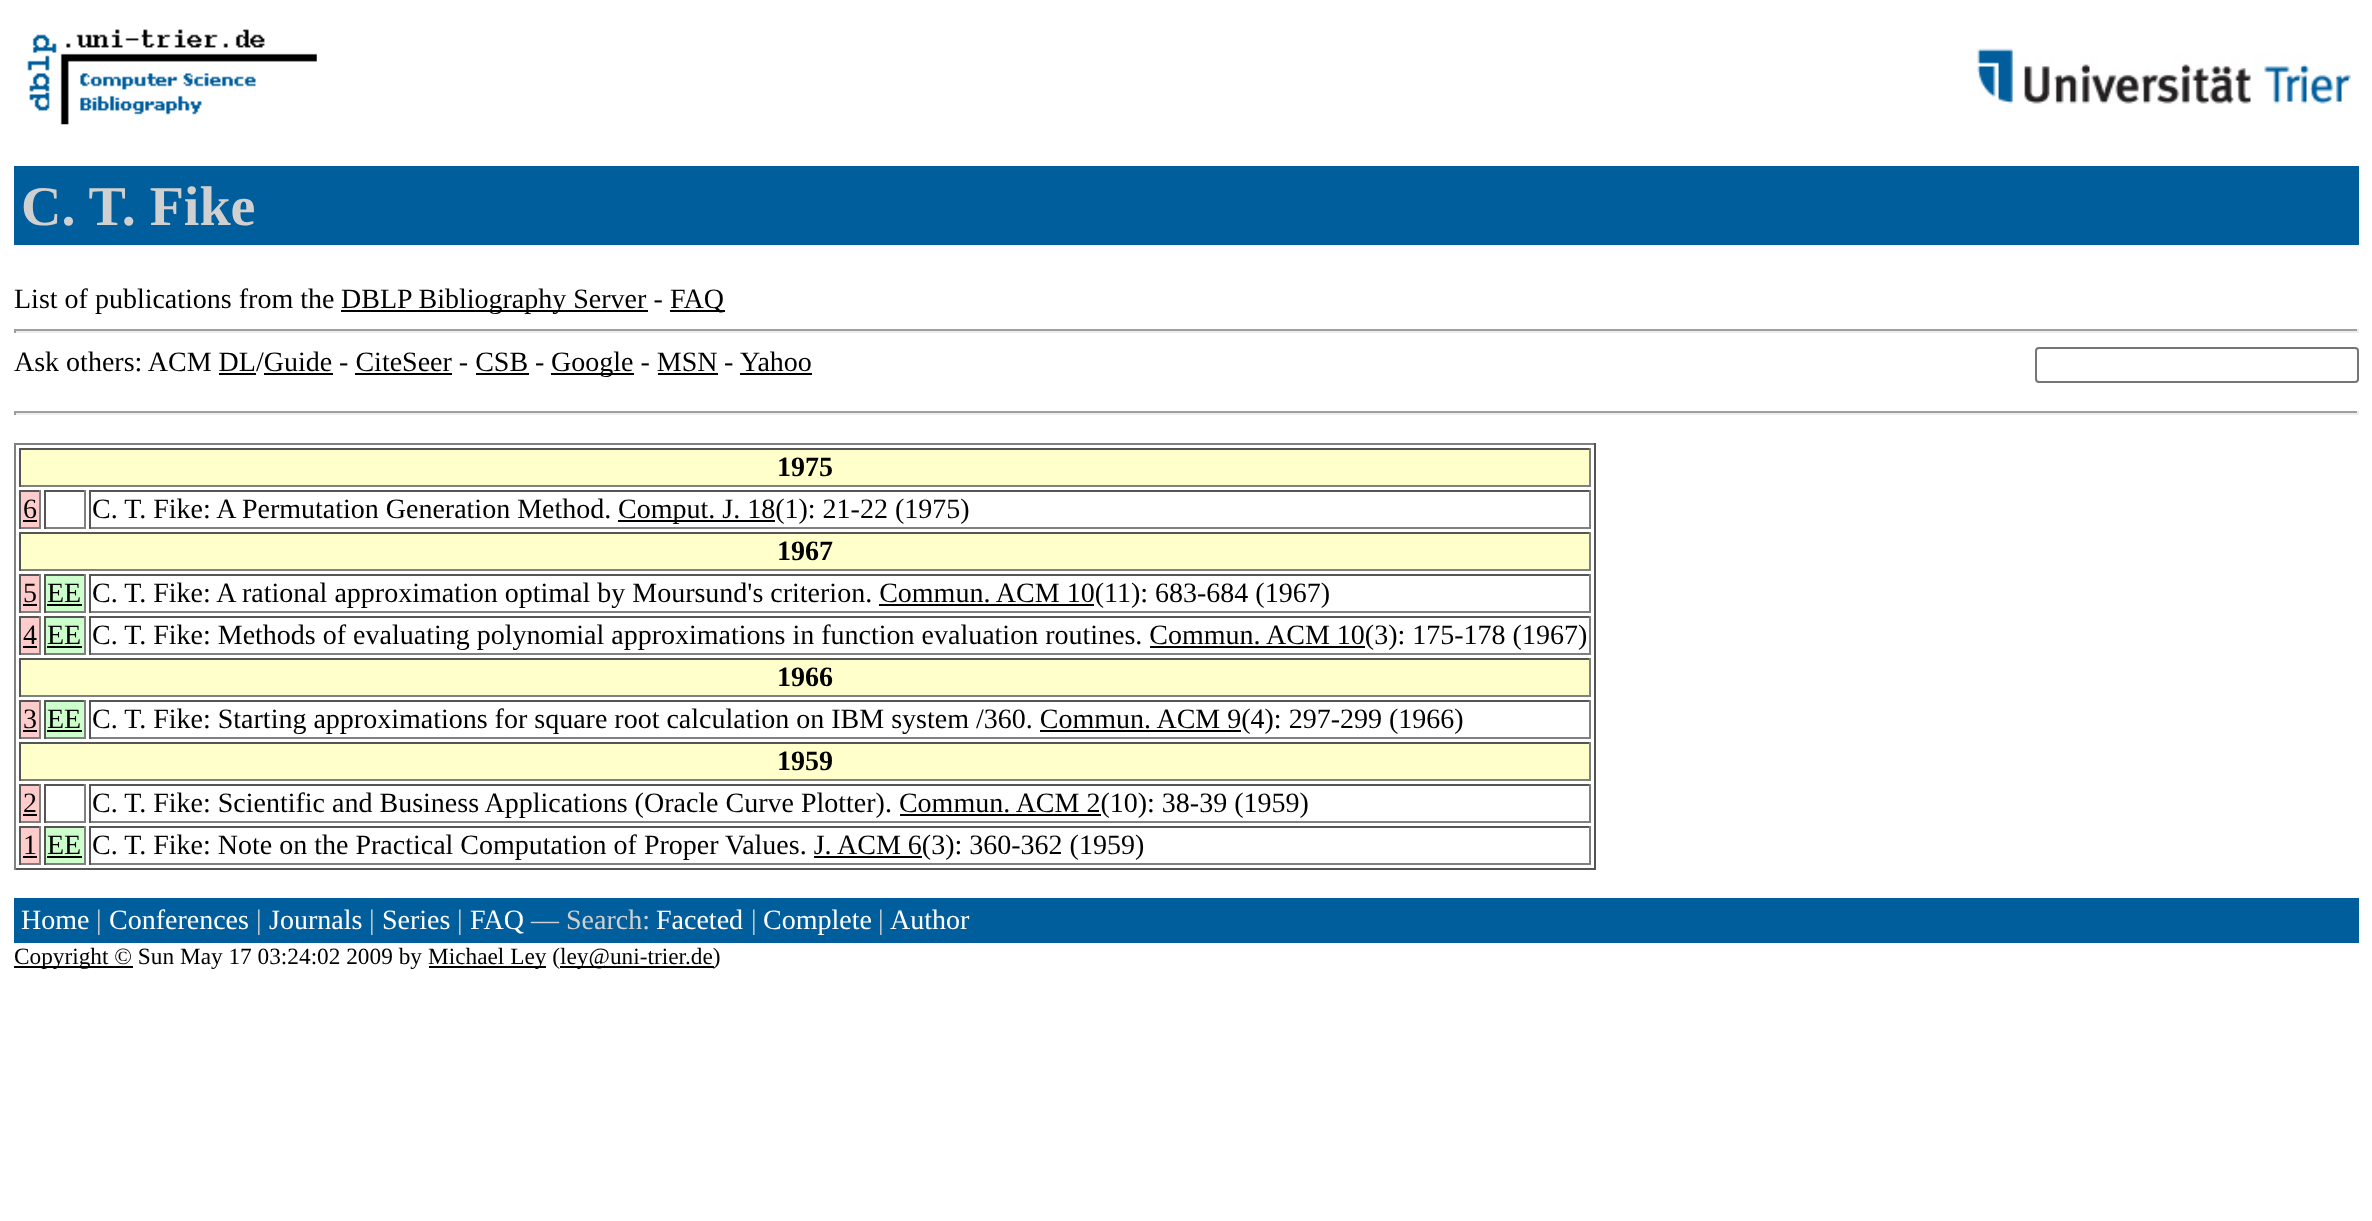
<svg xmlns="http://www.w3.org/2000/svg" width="2372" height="1221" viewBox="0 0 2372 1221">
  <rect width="100%" height="100%" fill="#ffffff"/>
  <image x="27" y="29" width="290" height="96" href="img1.png"/>
  <image x="1977" y="48" width="374" height="56" href="img2.png"/>
  <rect x="14" y="166" width="2345" height="79" fill="#005e9c"/>
  <text x="21" y="225" font-family="Liberation Serif" font-size="56" font-weight="bold" fill="#d0d0d0">C. T. Fike</text>
  <text x="14" y="308" font-family="Liberation Serif" font-size="28" fill="#000000">List of publications from the</text>
  <rect x="341" y="310" width="307" height="2" fill="#000000"/>
  <text x="341" y="308" font-family="Liberation Serif" font-size="28" fill="#000000">DBLP Bibliography Server -</text>
  <rect x="670" y="310" width="55" height="2" fill="#000000"/>
  <text x="670" y="308" font-family="Liberation Serif" font-size="28" fill="#000000">FAQ</text>
  <rect x="14" y="329" width="2345" height="2" fill="#9f9f9f"/>
  <rect x="2357" y="329" width="2" height="4" fill="#eeeeee"/>
  <rect x="14" y="331" width="2345" height="2" fill="#eeeeee"/>
  <rect x="14" y="329" width="2" height="4" fill="#9f9f9f"/>
  <text x="14" y="371" font-family="Liberation Serif" font-size="28" fill="#000000">Ask others: ACM DL/Guide - CiteSeer - CSB -</text>
  <rect x="551" y="373" width="83" height="2" fill="#000000"/>
  <text x="551" y="371" font-family="Liberation Serif" font-size="28" fill="#000000">Google - MSN</text>
  <text x="724" y="371" font-family="Liberation Serif" font-size="28" fill="#000000">-</text>
  <text x="740" y="371" font-family="Liberation Serif" font-size="28" fill="#000000">Yahoo</text>
  <rect x="740" y="373" width="72" height="2" fill="#000000"/>
  <rect x="2036" y="348" width="322" height="34" rx="3" fill="none" stroke="#767676" stroke-width="2"/>
  <rect x="219" y="373" width="37" height="2" fill="#000000"/>
  <rect x="264" y="373" width="69" height="2" fill="#000000"/>
  <rect x="355" y="373" width="97" height="2" fill="#000000"/>
  <rect x="476" y="373" width="53" height="2" fill="#000000"/>
  <rect x="658" y="373" width="60" height="2" fill="#000000"/>
  <rect x="14" y="411" width="2345" height="2" fill="#9f9f9f"/>
  <rect x="2357" y="411" width="2" height="4" fill="#eeeeee"/>
  <rect x="14" y="413" width="2345" height="2" fill="#eeeeee"/>
  <rect x="14" y="411" width="2" height="4" fill="#9f9f9f"/>
  <rect x="14" y="443" width="1582" height="2" fill="#808080"/>
  <rect x="1594" y="443" width="2" height="427" fill="#555555"/>
  <rect x="14" y="868" width="1582" height="2" fill="#555555"/>
  <rect x="14" y="443" width="2" height="427" fill="#808080"/>
  <rect x="21" y="450" width="1568" height="35" fill="#ffffcc"/>
  <rect x="19" y="448" width="1572" height="2" fill="#555555"/>
  <rect x="1589" y="448" width="2" height="39" fill="#808080"/>
  <rect x="19" y="485" width="1572" height="2" fill="#808080"/>
  <rect x="19" y="448" width="2" height="39" fill="#555555"/>
  <text x="777" y="476" font-family="Liberation Serif" font-size="28" font-weight="bold" fill="#000000">1975</text>
  <rect x="21" y="492" width="18" height="35" fill="#ffcccc"/>
  <rect x="19" y="490" width="21" height="2" fill="#555555"/>
  <rect x="39" y="490" width="2" height="39" fill="#808080"/>
  <rect x="19" y="527" width="21" height="2" fill="#808080"/>
  <rect x="19" y="490" width="2" height="39" fill="#555555"/>
  <text x="23" y="518" font-family="Liberation Serif" font-size="28" fill="#000000">6</text>
  <rect x="23" y="520" width="14" height="2" fill="#000000"/>
  <rect x="44" y="490" width="42" height="2" fill="#555555"/>
  <rect x="84" y="490" width="2" height="39" fill="#808080"/>
  <rect x="44" y="527" width="42" height="2" fill="#808080"/>
  <rect x="44" y="490" width="2" height="39" fill="#555555"/>
  <rect x="89" y="490" width="1502" height="2" fill="#555555"/>
  <rect x="1589" y="490" width="2" height="39" fill="#808080"/>
  <rect x="89" y="527" width="1502" height="2" fill="#808080"/>
  <rect x="89" y="490" width="2" height="39" fill="#555555"/>
  <text x="92" y="518" font-family="Liberation Serif" font-size="28" fill="#000000">C. T. Fike: A Permutation Generation Method.</text>
  <rect x="618" y="520" width="157" height="2" fill="#000000"/>
  <text x="618" y="518" font-family="Liberation Serif" font-size="28" fill="#000000">Comput. J. 18(1): 21-22 (1975)</text>
  <rect x="21" y="534" width="1568" height="35" fill="#ffffcc"/>
  <rect x="19" y="532" width="1572" height="2" fill="#555555"/>
  <rect x="1589" y="532" width="2" height="39" fill="#808080"/>
  <rect x="19" y="569" width="1572" height="2" fill="#808080"/>
  <rect x="19" y="532" width="2" height="39" fill="#555555"/>
  <text x="777" y="560" font-family="Liberation Serif" font-size="28" font-weight="bold" fill="#000000">1967</text>
  <rect x="21" y="576" width="18" height="35" fill="#ffcccc"/>
  <rect x="19" y="574" width="21" height="2" fill="#555555"/>
  <rect x="39" y="574" width="2" height="39" fill="#808080"/>
  <rect x="19" y="611" width="21" height="2" fill="#808080"/>
  <rect x="19" y="574" width="2" height="39" fill="#555555"/>
  <text x="23" y="602" font-family="Liberation Serif" font-size="28" fill="#000000">5</text>
  <rect x="23" y="604" width="14" height="2" fill="#000000"/>
  <rect x="46" y="576" width="38" height="35" fill="#ccffcc"/>
  <rect x="44" y="574" width="42" height="2" fill="#555555"/>
  <rect x="84" y="574" width="2" height="39" fill="#808080"/>
  <rect x="44" y="611" width="42" height="2" fill="#808080"/>
  <rect x="44" y="574" width="2" height="39" fill="#555555"/>
  <text x="47" y="602" font-family="Liberation Serif" font-size="28" fill="#000000">EE</text>
  <rect x="47" y="604" width="35" height="2" fill="#000000"/>
  <rect x="89" y="574" width="1502" height="2" fill="#555555"/>
  <rect x="1589" y="574" width="2" height="39" fill="#808080"/>
  <rect x="89" y="611" width="1502" height="2" fill="#808080"/>
  <rect x="89" y="574" width="2" height="39" fill="#555555"/>
  <text x="92" y="602" font-family="Liberation Serif" font-size="28" fill="#000000">C. T. Fike: A rational approximation optimal by Moursund's criterion. Commun. ACM 10(11): 683-684 (1967)</text>
  <rect x="879" y="604" width="215" height="2" fill="#000000"/>
  <rect x="21" y="618" width="18" height="35" fill="#ffcccc"/>
  <rect x="19" y="616" width="21" height="2" fill="#555555"/>
  <rect x="39" y="616" width="2" height="39" fill="#808080"/>
  <rect x="19" y="653" width="21" height="2" fill="#808080"/>
  <rect x="19" y="616" width="2" height="39" fill="#555555"/>
  <text x="23" y="644" font-family="Liberation Serif" font-size="28" fill="#000000">4</text>
  <rect x="23" y="646" width="14" height="2" fill="#000000"/>
  <rect x="46" y="618" width="38" height="35" fill="#ccffcc"/>
  <rect x="44" y="616" width="42" height="2" fill="#555555"/>
  <rect x="84" y="616" width="2" height="39" fill="#808080"/>
  <rect x="44" y="653" width="42" height="2" fill="#808080"/>
  <rect x="44" y="616" width="2" height="39" fill="#555555"/>
  <text x="47" y="644" font-family="Liberation Serif" font-size="28" fill="#000000">EE</text>
  <rect x="47" y="646" width="35" height="2" fill="#000000"/>
  <rect x="89" y="616" width="1502" height="2" fill="#555555"/>
  <rect x="1589" y="616" width="2" height="39" fill="#808080"/>
  <rect x="89" y="653" width="1502" height="2" fill="#808080"/>
  <rect x="89" y="616" width="2" height="39" fill="#555555"/>
  <text x="92" y="644" font-family="Liberation Serif" font-size="28" fill="#000000">C. T. Fike: Methods of evaluating polynomial approximations in function evaluation routines. Commun. ACM 10(3): 175-178 (1967)</text>
  <rect x="1150" y="646" width="215" height="2" fill="#000000"/>
  <rect x="21" y="660" width="1568" height="35" fill="#ffffcc"/>
  <rect x="19" y="658" width="1572" height="2" fill="#555555"/>
  <rect x="1589" y="658" width="2" height="39" fill="#808080"/>
  <rect x="19" y="695" width="1572" height="2" fill="#808080"/>
  <rect x="19" y="658" width="2" height="39" fill="#555555"/>
  <text x="777" y="686" font-family="Liberation Serif" font-size="28" font-weight="bold" fill="#000000">1966</text>
  <rect x="21" y="702" width="18" height="35" fill="#ffcccc"/>
  <rect x="19" y="700" width="21" height="2" fill="#555555"/>
  <rect x="39" y="700" width="2" height="39" fill="#808080"/>
  <rect x="19" y="737" width="21" height="2" fill="#808080"/>
  <rect x="19" y="700" width="2" height="39" fill="#555555"/>
  <text x="23" y="728" font-family="Liberation Serif" font-size="28" fill="#000000">3</text>
  <rect x="23" y="730" width="14" height="2" fill="#000000"/>
  <rect x="46" y="702" width="38" height="35" fill="#ccffcc"/>
  <rect x="44" y="700" width="42" height="2" fill="#555555"/>
  <rect x="84" y="700" width="2" height="39" fill="#808080"/>
  <rect x="44" y="737" width="42" height="2" fill="#808080"/>
  <rect x="44" y="700" width="2" height="39" fill="#555555"/>
  <text x="47" y="728" font-family="Liberation Serif" font-size="28" fill="#000000">EE</text>
  <rect x="47" y="730" width="35" height="2" fill="#000000"/>
  <rect x="89" y="700" width="1502" height="2" fill="#555555"/>
  <rect x="1589" y="700" width="2" height="39" fill="#808080"/>
  <rect x="89" y="737" width="1502" height="2" fill="#808080"/>
  <rect x="89" y="700" width="2" height="39" fill="#555555"/>
  <text x="92" y="728" font-family="Liberation Serif" font-size="28" fill="#000000">C. T. Fike: Starting approximations for square root calculation on IBM system /360. Commun. ACM 9(4): 297-299 (1966)</text>
  <rect x="1040" y="730" width="201" height="2" fill="#000000"/>
  <rect x="21" y="744" width="1568" height="35" fill="#ffffcc"/>
  <rect x="19" y="742" width="1572" height="2" fill="#555555"/>
  <rect x="1589" y="742" width="2" height="39" fill="#808080"/>
  <rect x="19" y="779" width="1572" height="2" fill="#808080"/>
  <rect x="19" y="742" width="2" height="39" fill="#555555"/>
  <text x="777" y="770" font-family="Liberation Serif" font-size="28" font-weight="bold" fill="#000000">1959</text>
  <rect x="21" y="786" width="18" height="35" fill="#ffcccc"/>
  <rect x="19" y="784" width="21" height="2" fill="#555555"/>
  <rect x="39" y="784" width="2" height="39" fill="#808080"/>
  <rect x="19" y="821" width="21" height="2" fill="#808080"/>
  <rect x="19" y="784" width="2" height="39" fill="#555555"/>
  <text x="23" y="812" font-family="Liberation Serif" font-size="28" fill="#000000">2</text>
  <rect x="23" y="814" width="14" height="2" fill="#000000"/>
  <rect x="44" y="784" width="42" height="2" fill="#555555"/>
  <rect x="84" y="784" width="2" height="39" fill="#808080"/>
  <rect x="44" y="821" width="42" height="2" fill="#808080"/>
  <rect x="44" y="784" width="2" height="39" fill="#555555"/>
  <rect x="89" y="784" width="1502" height="2" fill="#555555"/>
  <rect x="1589" y="784" width="2" height="39" fill="#808080"/>
  <rect x="89" y="821" width="1502" height="2" fill="#808080"/>
  <rect x="89" y="784" width="2" height="39" fill="#555555"/>
  <text x="92" y="812" font-family="Liberation Serif" font-size="28" fill="#000000">C. T. Fike: Scientific and Business Applications (Oracle Curve Plotter). Commun. ACM 2(10): 38-39 (1959)</text>
  <rect x="900" y="814" width="201" height="2" fill="#000000"/>
  <rect x="21" y="828" width="18" height="35" fill="#ffcccc"/>
  <rect x="19" y="826" width="21" height="2" fill="#555555"/>
  <rect x="39" y="826" width="2" height="39" fill="#808080"/>
  <rect x="19" y="863" width="21" height="2" fill="#808080"/>
  <rect x="19" y="826" width="2" height="39" fill="#555555"/>
  <text x="23" y="854" font-family="Liberation Serif" font-size="28" fill="#000000">1</text>
  <rect x="23" y="856" width="14" height="2" fill="#000000"/>
  <rect x="46" y="828" width="38" height="35" fill="#ccffcc"/>
  <rect x="44" y="826" width="42" height="2" fill="#555555"/>
  <rect x="84" y="826" width="2" height="39" fill="#808080"/>
  <rect x="44" y="863" width="42" height="2" fill="#808080"/>
  <rect x="44" y="826" width="2" height="39" fill="#555555"/>
  <text x="47" y="854" font-family="Liberation Serif" font-size="28" fill="#000000">EE</text>
  <rect x="47" y="856" width="35" height="2" fill="#000000"/>
  <rect x="89" y="826" width="1502" height="2" fill="#555555"/>
  <rect x="1589" y="826" width="2" height="39" fill="#808080"/>
  <rect x="89" y="863" width="1502" height="2" fill="#808080"/>
  <rect x="89" y="826" width="2" height="39" fill="#555555"/>
  <text x="92" y="854" font-family="Liberation Serif" font-size="28" fill="#000000">C. T. Fike: Note on the Practical Computation of Proper Values. J. ACM 6(3): 360-362 (1959)</text>
  <rect x="814" y="856" width="108" height="2" fill="#000000"/>
  <rect x="14" y="898" width="2345" height="45" fill="#005e9c"/>
  <text x="21" y="929" font-family="Liberation Serif" font-size="28" fill="#ffffff">Home</text>
  <text x="96" y="929" font-family="Liberation Serif" font-size="28" fill="#d0d0d0">|</text>
  <text x="109" y="929" font-family="Liberation Serif" font-size="28" fill="#ffffff">Conferences</text>
  <text x="256" y="929" font-family="Liberation Serif" font-size="28" fill="#d0d0d0">|</text>
  <text x="269" y="929" font-family="Liberation Serif" font-size="28" fill="#ffffff">Journals</text>
  <text x="369" y="929" font-family="Liberation Serif" font-size="28" fill="#d0d0d0">|</text>
  <text x="382" y="929" font-family="Liberation Serif" font-size="28" fill="#ffffff">Series</text>
  <text x="457" y="929" font-family="Liberation Serif" font-size="28" fill="#d0d0d0">|</text>
  <text x="470" y="929" font-family="Liberation Serif" font-size="28" fill="#ffffff">FAQ</text>
  <text x="531" y="929" font-family="Liberation Serif" font-size="28" fill="#d0d0d0">— Search:</text>
  <text x="656" y="929" font-family="Liberation Serif" font-size="28" fill="#ffffff">Faceted</text>
  <text x="751" y="929" font-family="Liberation Serif" font-size="28" fill="#d0d0d0">|</text>
  <text x="763" y="929" font-family="Liberation Serif" font-size="28" fill="#ffffff">Complete</text>
  <text x="878" y="929" font-family="Liberation Serif" font-size="28" fill="#d0d0d0">|</text>
  <text x="890" y="929" font-family="Liberation Serif" font-size="28" fill="#ffffff">Author</text>
  <rect x="14" y="966" width="119" height="2" fill="#000000"/>
  <text x="14" y="964" font-family="Liberation Serif" font-size="23.3" fill="#000000">Copyright © Sun May 17 03:24:02 2009 by</text>
  <rect x="429" y="966" width="117" height="2" fill="#000000"/>
  <text x="428" y="964" font-family="Liberation Serif" font-size="23.3" fill="#000000">Michael Ley (</text>
  <rect x="560" y="966" width="154" height="2" fill="#000000"/>
  <text x="560" y="964" font-family="Liberation Serif" font-size="23.3" fill="#000000">ley@uni-trier.de)</text>
</svg>
